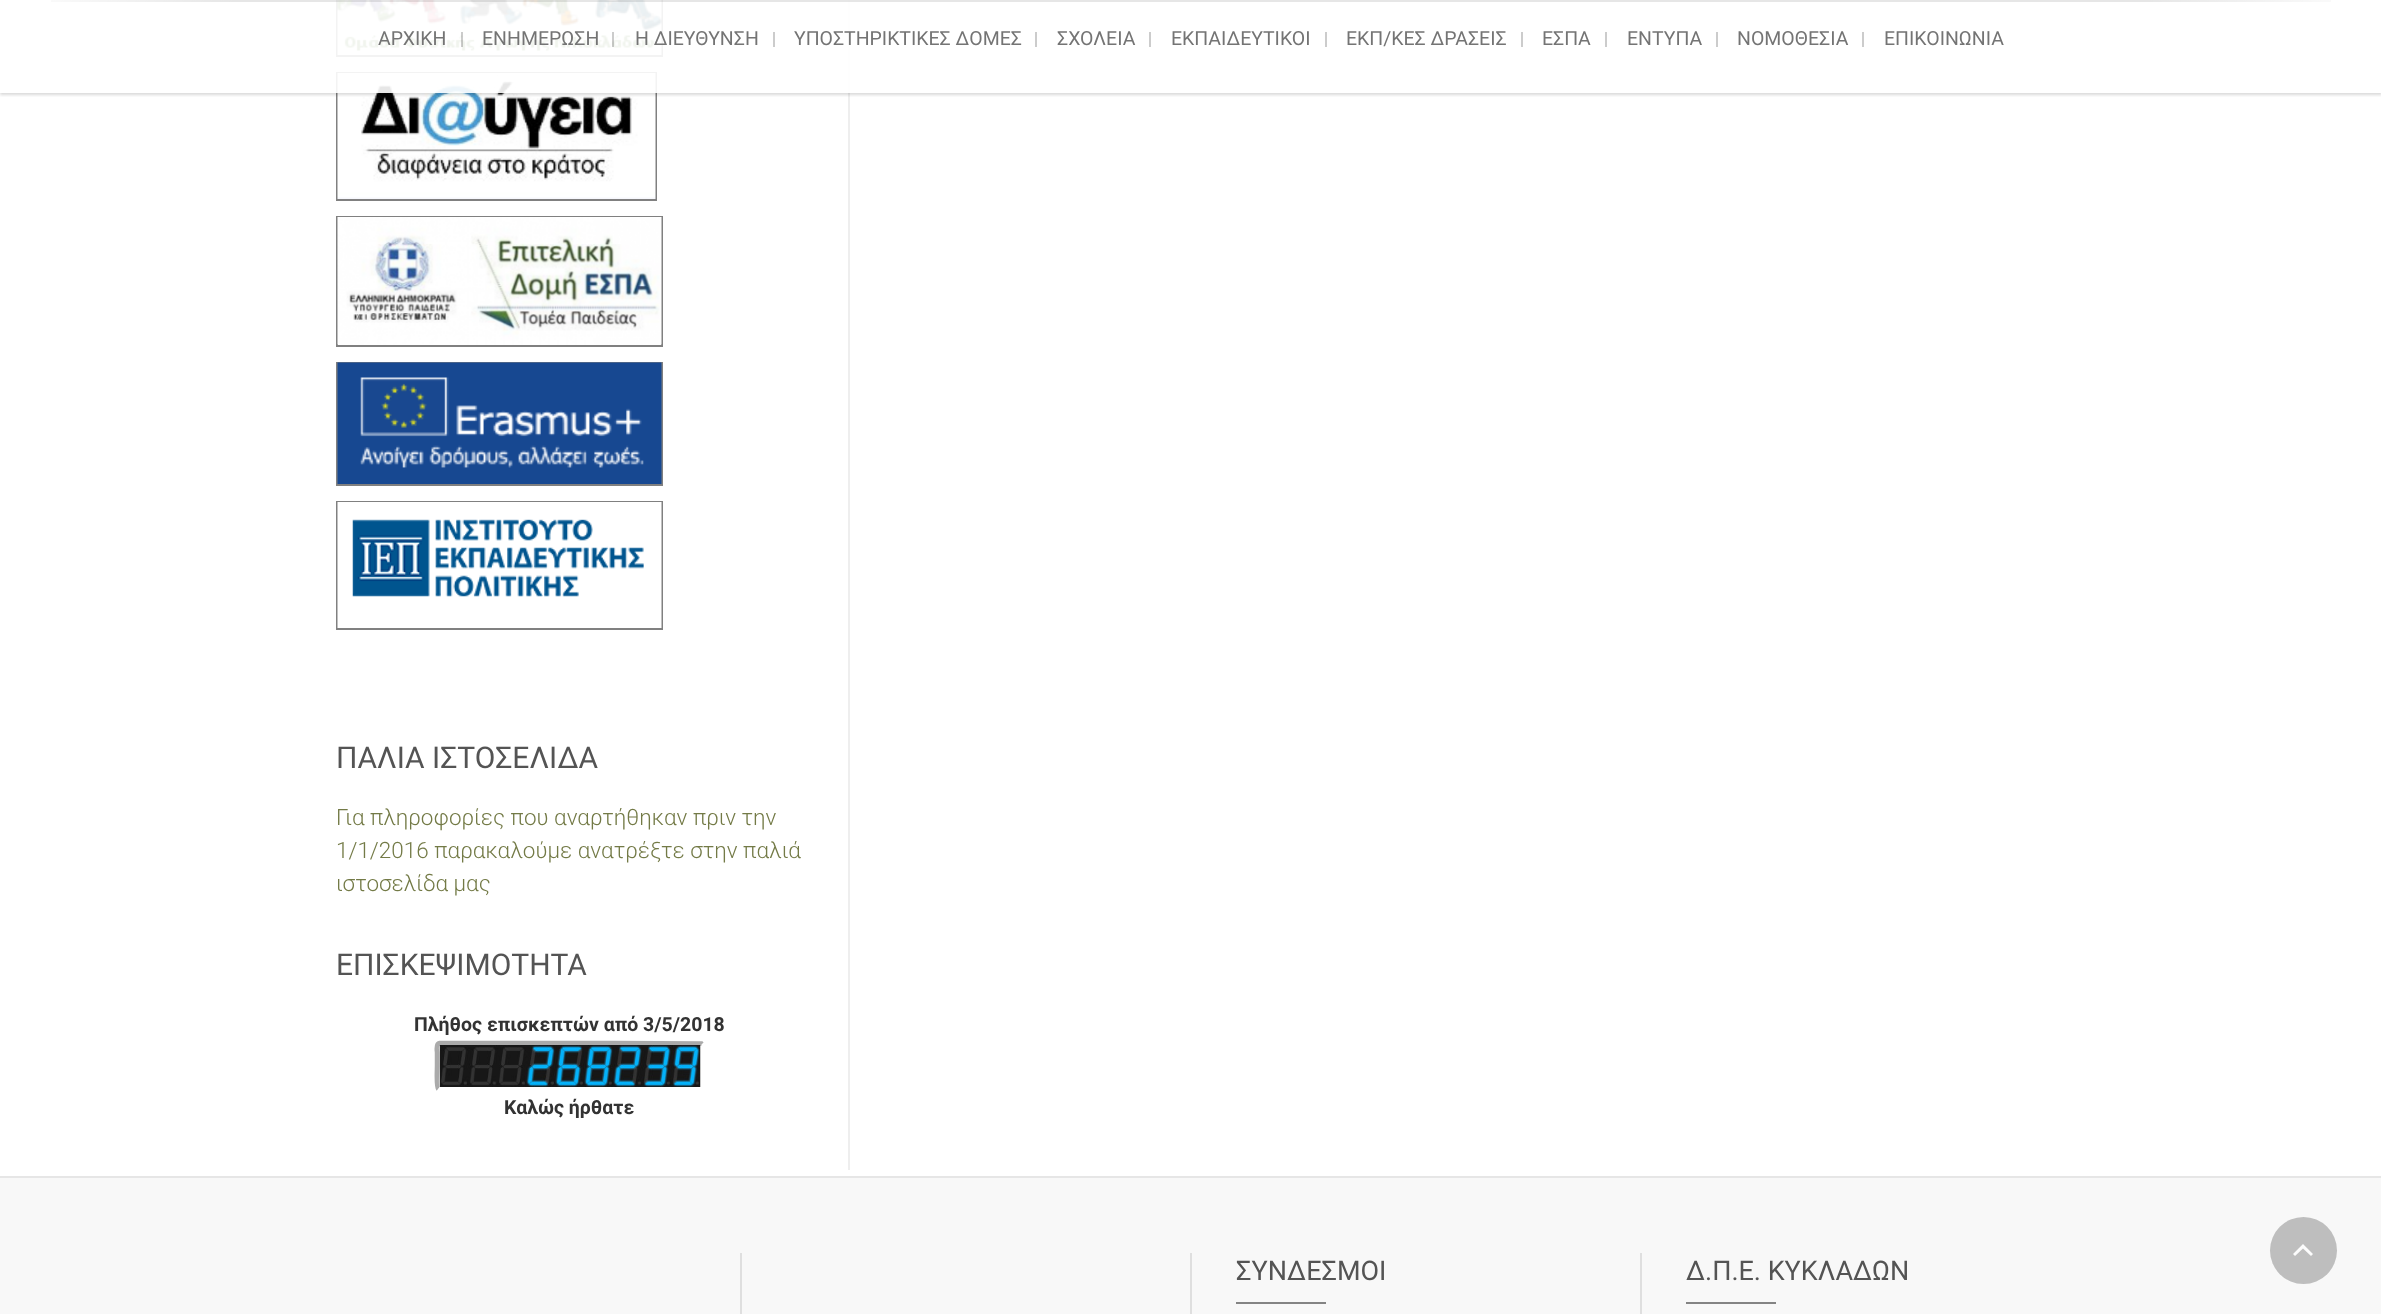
<svg xmlns="http://www.w3.org/2000/svg" width="2381" height="1314" viewBox="0 0 2381 1314">
  <defs>
    <clipPath id="clip1"><rect x="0" y="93" width="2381" height="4"/></clipPath>
    <filter id="blur1" x="-50%" y="-200%" width="200%" height="500%"><feGaussianBlur stdDeviation="1.5"/></filter>
    <linearGradient id="g1" gradientUnits="userSpaceOnUse" x1="0" y1="0.8" x2="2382" y2="0.7"><stop offset="0" stop-color="#000000" stop-opacity="0"/><stop offset="0.1" stop-color="#000000" stop-opacity="0.1"/><stop offset="0.9" stop-color="#000000" stop-opacity="0.1"/><stop offset="1" stop-color="#000000" stop-opacity="0"/></linearGradient>
  </defs>
  <rect width="100%" height="100%" fill="#ffffff"/>
  <rect x="848" y="0" width="2" height="1170" fill="#eeeeee"/>
  <rect x="337" y="-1" width="325" height="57" fill="none" stroke="#808080" stroke-width="2"/>
  <image x="337" y="0" width="325" height="55" href="img1.png"/>
  <rect x="337" y="73" width="319" height="127" fill="none" stroke="#808080" stroke-width="2"/>
  <image x="337" y="73" width="319" height="126" href="img2.png"/>
  <g clip-path="url(#clip1)">
    <rect x="0" y="2" width="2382" height="93" fill="#000000" fill-opacity="0.15" filter="url(#blur1)"/>
  </g>
  <rect x="336" y="0" width="514" height="93" fill="#ffffff" fill-opacity="0.9"/>
  <rect x="51" y="0" width="2280" height="2" fill="url(#g1)"/>
  <text x="378" y="45" font-family="Roboto" font-size="19.5" fill="#747474">ΑΡΧΙΚΗ</text>
  <rect x="461" y="32" width="2" height="15" fill="#000000" fill-opacity="0.2"/>
  <text x="482" y="45" font-family="Roboto" font-size="19.5" fill="#747474">ΕΝΗΜΕΡΩΣΗ</text>
  <rect x="612" y="32" width="2" height="15" fill="#000000" fill-opacity="0.2"/>
  <text x="635" y="45" font-family="Roboto" font-size="19.5" fill="#747474">Η ΔΙΕΥΘΥΝΣΗ</text>
  <rect x="773" y="32" width="2" height="15" fill="#cccccc"/>
  <text x="794" y="45" font-family="Roboto" font-size="19.5" fill="#747474">ΥΠΟΣΤΗΡΙΚΤΙΚΕΣ ΔΟΜΕΣ</text>
  <rect x="1035" y="32" width="2" height="15" fill="#cccccc"/>
  <text x="1057" y="45" font-family="Roboto" font-size="19.5" fill="#747474">ΣΧΟΛΕΙΑ</text>
  <rect x="1149" y="32" width="2" height="15" fill="#cccccc"/>
  <text x="1171" y="45" font-family="Roboto" font-size="19.5" fill="#747474">ΕΚΠΑΙΔΕΥΤΙΚΟΙ</text>
  <rect x="1325" y="32" width="2" height="15" fill="#cccccc"/>
  <text x="1346" y="45" font-family="Roboto" font-size="19.5" fill="#747474">ΕΚΠ/ΚΕΣ ΔΡΑΣΕΙΣ</text>
  <rect x="1521" y="32" width="2" height="15" fill="#cccccc"/>
  <text x="1542" y="45" font-family="Roboto" font-size="19.5" fill="#747474">ΕΣΠΑ</text>
  <rect x="1605" y="32" width="2" height="15" fill="#cccccc"/>
  <text x="1627" y="45" font-family="Roboto" font-size="19.5" fill="#747474">ΕΝΤΥΠΑ</text>
  <rect x="1716" y="32" width="2" height="15" fill="#cccccc"/>
  <text x="1737" y="45" font-family="Roboto" font-size="19.5" fill="#747474">ΝΟΜΟΘΕΣΙΑ</text>
  <rect x="1862" y="32" width="2" height="15" fill="#cccccc"/>
  <text x="1884" y="45" font-family="Roboto" font-size="19.5" fill="#747474">ΕΠΙΚΟΙΝΩΝΙΑ</text>
  <rect x="337" y="217" width="325" height="129" fill="none" stroke="#808080" stroke-width="2"/>
  <image x="337" y="217" width="325" height="128" href="img3.png"/>
  <rect x="337" y="363" width="325" height="122" fill="none" stroke="#808080" stroke-width="2"/>
  <image x="337" y="362" width="325" height="122" href="img4.png"/>
  <rect x="337" y="502" width="325" height="127" fill="none" stroke="#808080" stroke-width="2"/>
  <image x="337" y="502" width="325" height="126" href="img5.png"/>
  <text x="336" y="768" font-family="Roboto" font-size="30" fill="#545454">ΠΑΛΙΑ ΙΣΤΟΣΕΛΙΔΑ</text>
  <text x="336" y="825" font-family="Roboto" font-size="22.5" font-weight="300" fill="#737a46">Για πληροφορίες που αναρτήθηκαν πριν την</text>
  <text x="336" y="858" font-family="Roboto" font-size="22.5" font-weight="300" fill="#737a46">1/1/2016 παρακαλούμε ανατρέξτε στην παλιά</text>
  <text x="336" y="891" font-family="Roboto" font-size="22.5" font-weight="300" fill="#737a46">ιστοσελίδα μας</text>
  <text x="336" y="975" font-family="Roboto" font-size="30" fill="#545454">ΕΠΙΣΚΕΨΙΜΟΤΗΤΑ</text>
  <text x="414" y="1031" font-family="Roboto" font-size="19.5" font-weight="bold" fill="#333333">Πλήθος επισκεπτών από 3/5/2018</text>
  <path d="M438 1089C436 1087.5 437 1069.5 437 1066.5V1052.5C437 1052 435.5 1043.5 439.5 1043H613.5L701.5 1043.5L702 1044" fill="none" stroke="#aaaaaa" stroke-width="4.5"/>
  <image x="439" y="1045" width="262" height="42" href="img6.png"/>
  <text x="504" y="1114" font-family="Roboto" font-size="19.5" font-weight="bold" fill="#333333">Καλώς ήρθατε</text>
  <rect x="0" y="1176" width="2381" height="2" fill="#e6e6e6"/>
  <rect x="0" y="1178" width="2381" height="136" fill="#f8f8f8"/>
  <rect x="740" y="1253" width="2" height="61" fill="#dfdfdf"/>
  <rect x="1190" y="1253" width="2" height="61" fill="#dfdfdf"/>
  <rect x="1640" y="1253" width="2" height="61" fill="#dfdfdf"/>
  <text x="1236" y="1280" font-family="Roboto" font-size="27" fill="#545454">ΣΥΝΔΕΣΜΟΙ</text>
  <rect x="1236" y="1302" width="90" height="2" fill="#848484"/>
  <text x="1686" y="1280" font-family="Roboto" font-size="27" fill="#545454">Δ.Π.Ε. ΚΥΚΛΑΔΩΝ</text>
  <rect x="1686" y="1302" width="90" height="2" fill="#848484"/>
  <circle cx="2303.5" cy="1250.5" r="33.5" fill="#bebebe"/>
  <path d="M2311 1256L2303 1248.5L2295 1256L2293 1254L2303 1244L2313 1254Z" fill="#fcfcfc"/>
</svg>
